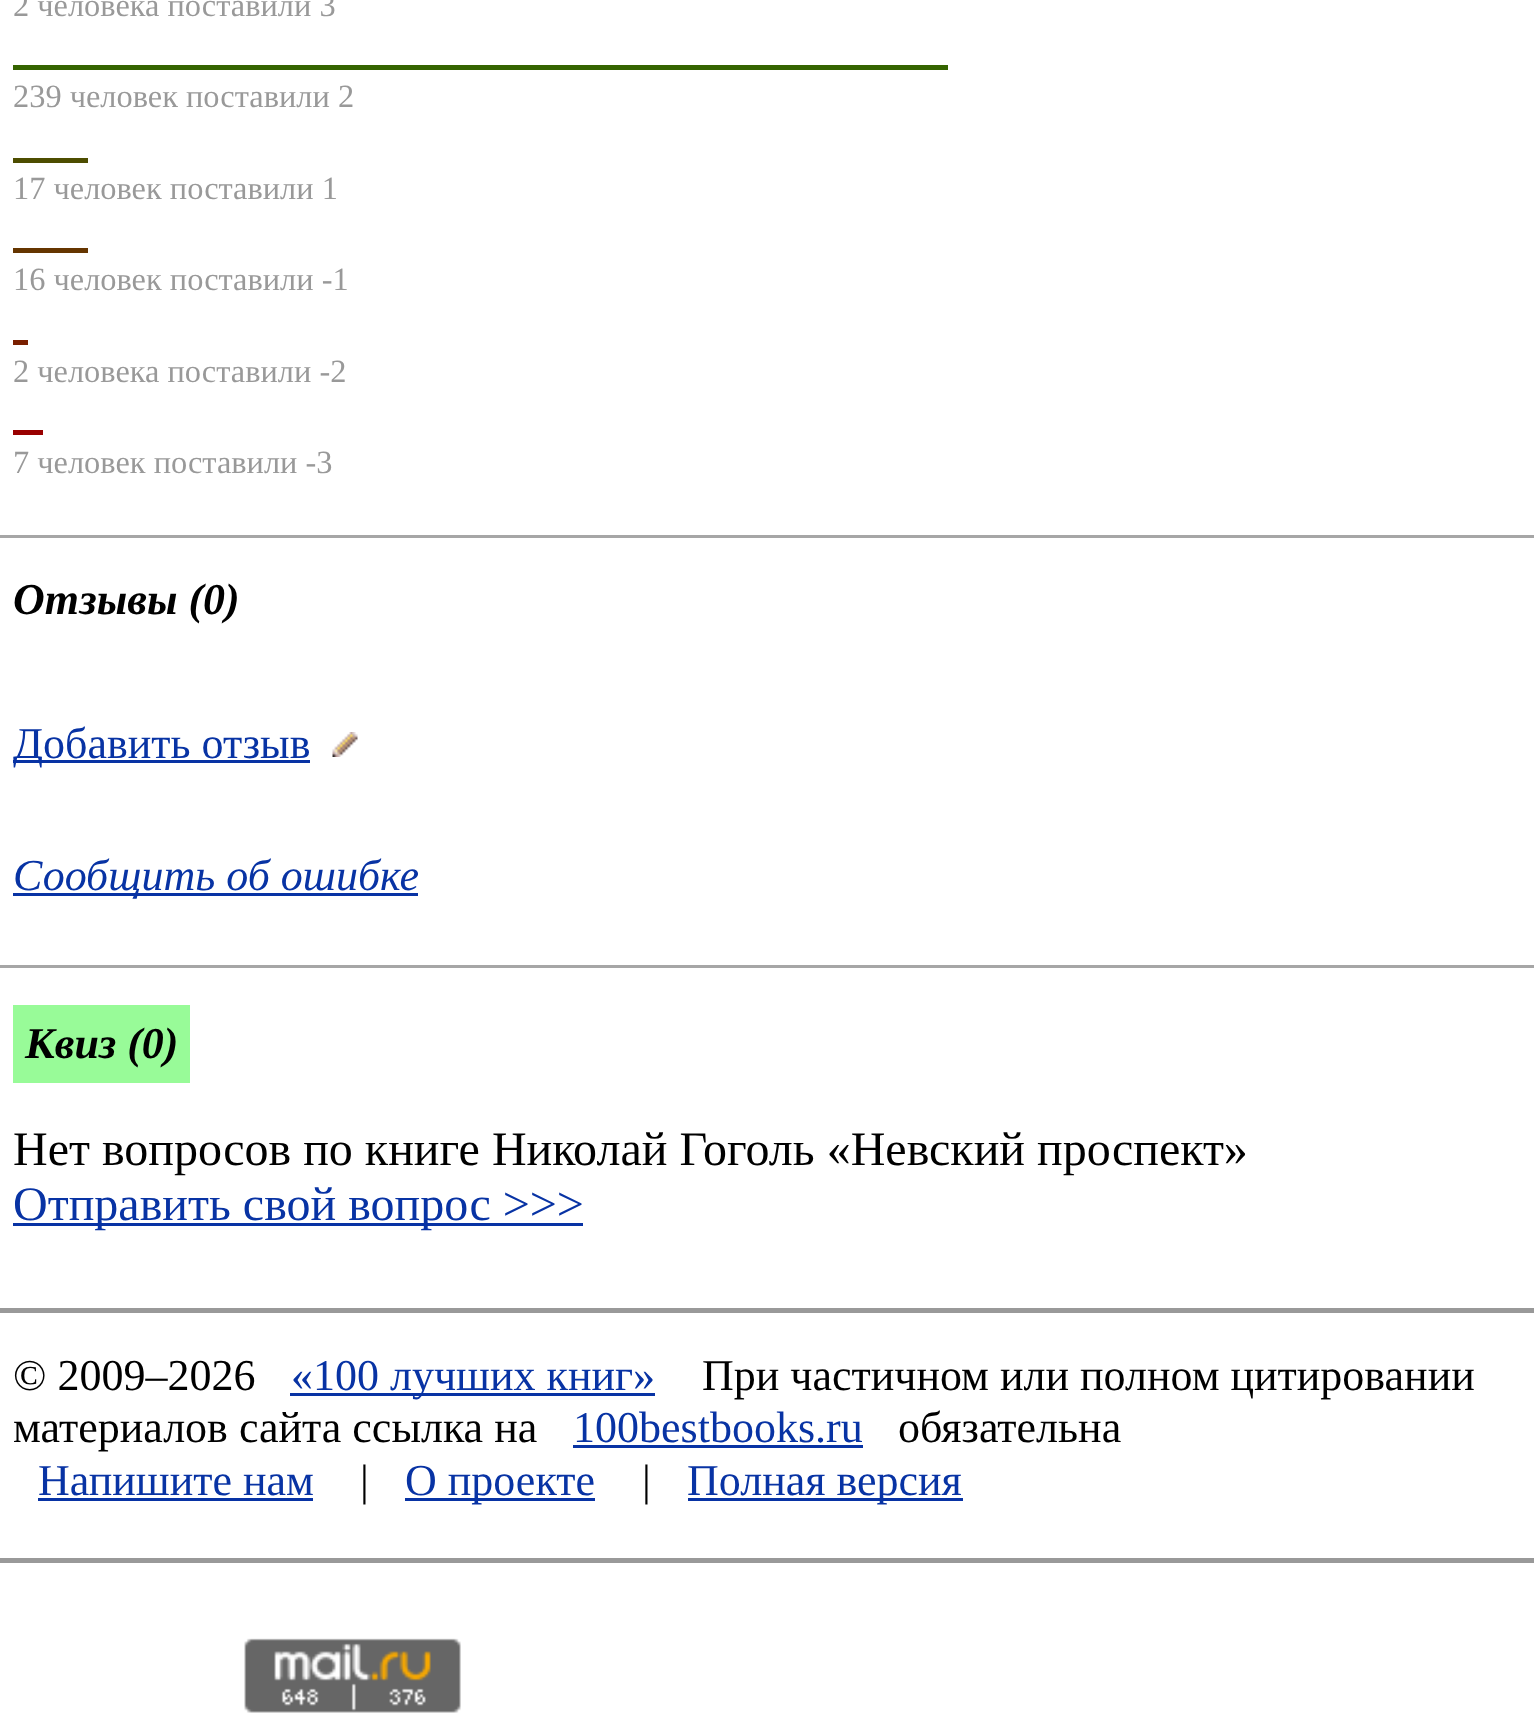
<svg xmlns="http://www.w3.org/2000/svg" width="1534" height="1736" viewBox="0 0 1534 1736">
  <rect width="100%" height="100%" fill="#ffffff"/>
  <rect x="0" y="535" width="1534" height="3" fill="#a6a6a6"/>
  <text x="13" y="16" font-family="Liberation Serif" font-size="32.4" fill="#999999">2 человека поставили 3</text>
  <rect x="13" y="65" width="935" height="5" fill="#356400"/>
  <text x="13" y="107" font-family="Liberation Serif" font-size="32.4" fill="#999999">239 человек поставили 2</text>
  <rect x="13" y="158" width="75" height="5" fill="#4d4d00"/>
  <text x="13" y="199" font-family="Liberation Serif" font-size="32.4" fill="#999999">17 человек поставили 1</text>
  <rect x="13" y="248" width="75" height="5" fill="#653500"/>
  <text x="13" y="290" font-family="Liberation Serif" font-size="32.4" fill="#999999">16 человек поставили -1</text>
  <rect x="13" y="340" width="15" height="5" fill="#7a1f00"/>
  <text x="13" y="382" font-family="Liberation Serif" font-size="32.4" fill="#999999">2 человека поставили -2</text>
  <rect x="13" y="430" width="30" height="5" fill="#990000"/>
  <text x="13" y="473" font-family="Liberation Serif" font-size="32.4" fill="#999999">7 человек поставили -3</text>
  <rect x="0" y="965" width="1534" height="3" fill="#a6a6a6"/>
  <text x="13" y="614" font-family="Liberation Serif" font-size="44" font-weight="bold" font-style="italic" fill="#000000">Отзывы (0)</text>
  <rect x="13" y="760" width="297" height="3" fill="#0833a4"/>
  <text x="13" y="758" font-family="Liberation Serif" font-size="44" fill="#0833a4">Добавить отзыв</text>
  <image x="332" y="732" width="26" height="25" href="img1.png"/>
  <rect x="13" y="893" width="405" height="3" fill="#0833a4"/>
  <text x="13" y="890" font-family="Liberation Serif" font-size="44" font-style="italic" fill="#0833a4">Сообщить об ошибке</text>
  <rect x="13" y="1005" width="177" height="78" fill="#98fb98"/>
  <text x="25" y="1058" font-family="Liberation Serif" font-size="44" font-weight="bold" font-style="italic" fill="#000000">Квиз (0)</text>
  <text x="13" y="1165" font-family="Liberation Serif" font-size="48" fill="#000000">Нет вопросов по книге Николай Гоголь «Невский проспект»</text>
  <rect x="13" y="1223" width="570" height="3" fill="#0833a4"/>
  <text x="13" y="1220" font-family="Liberation Serif" font-size="48" fill="#0833a4">Отправить свой вопрос &gt;&gt;&gt;</text>
  <rect x="0" y="1308" width="1534" height="5" fill="#999999"/>
  <text x="13" y="1390" font-family="Liberation Serif" font-size="44" fill="#000000">© 2009–2026</text>
  <rect x="290" y="1393" width="365" height="3" fill="#0833a4"/>
  <text x="291" y="1390" font-family="Liberation Serif" font-size="44" fill="#0833a4">«100 лучших книг»</text>
  <text x="702" y="1390" font-family="Liberation Serif" font-size="44" fill="#000000">При частичном или полном цитировании</text>
  <text x="13" y="1442" font-family="Liberation Serif" font-size="44" fill="#000000">материалов сайта ссылка на</text>
  <text x="573" y="1442" font-family="Liberation Serif" font-size="44" fill="#0833a4">100bestbooks.ru</text>
  <rect x="573" y="1445" width="290" height="3" fill="#0833a4"/>
  <text x="898" y="1442" font-family="Liberation Serif" font-size="44" fill="#000000">обязательна</text>
  <text x="38" y="1495" font-family="Liberation Serif" font-size="44" fill="#0833a4">Напишите нам</text>
  <rect x="38" y="1498" width="275" height="3" fill="#0833a4"/>
  <text x="360" y="1495" font-family="Liberation Serif" font-size="44" fill="#000000">|</text>
  <rect x="405" y="1498" width="190" height="3" fill="#0833a4"/>
  <text x="405" y="1495" font-family="Liberation Serif" font-size="44" fill="#0833a4">О проекте</text>
  <text x="642" y="1495" font-family="Liberation Serif" font-size="44" fill="#000000">|</text>
  <rect x="688" y="1498" width="275" height="3" fill="#0833a4"/>
  <text x="687" y="1495" font-family="Liberation Serif" font-size="44" fill="#0833a4">Полная версия</text>
  <rect x="0" y="1558" width="1534" height="5" fill="#999999"/>
  <image x="244" y="1638" width="217" height="75" href="img2.png"/>
</svg>
